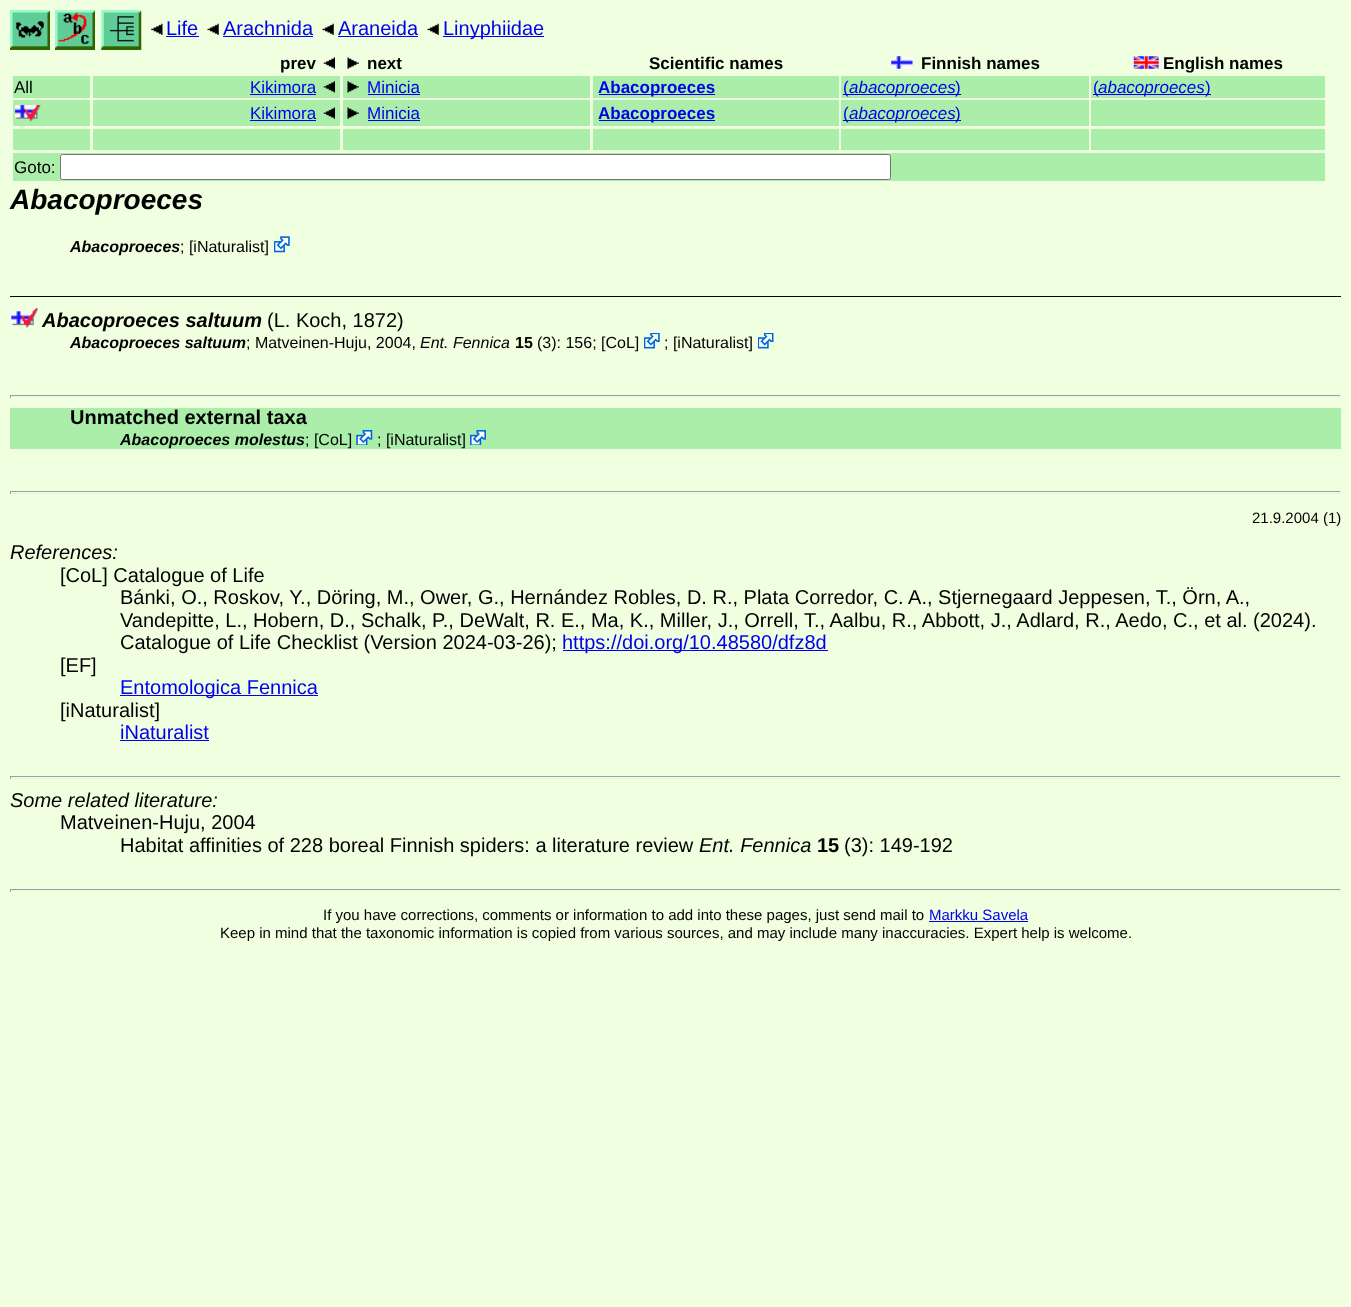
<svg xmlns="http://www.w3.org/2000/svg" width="1351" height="1307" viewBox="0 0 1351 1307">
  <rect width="100%" height="100%" fill="#f0ffe0"/>
  <image x="10" y="10" width="40" height="40" href="img1.png"/>
  <image x="55" y="10" width="40" height="40" href="img2.png"/>
  <image x="101" y="10" width="41" height="40" href="img3.png"/>
  <image x="151" y="23" width="12" height="12" href="img4.png"/>
  <text x="166" y="35" font-family="Liberation Sans" font-size="20" fill="#0000ee">Life</text>
  <rect x="166" y="36" width="33" height="1" fill="#0000ee"/>
  <image x="207" y="23" width="12" height="12" href="img5.png"/>
  <text x="223" y="35" font-family="Liberation Sans" font-size="20" fill="#0000ee">Arachnida</text>
  <rect x="223" y="36" width="90" height="1" fill="#0000ee"/>
  <image x="322" y="23" width="12" height="12" href="img5.png"/>
  <text x="338" y="35" font-family="Liberation Sans" font-size="20" fill="#0000ee">Araneida</text>
  <rect x="338" y="36" width="80" height="1" fill="#0000ee"/>
  <image x="427" y="23" width="12" height="12" href="img5.png"/>
  <rect x="443" y="36" width="101" height="1" fill="#0000ee"/>
  <text x="443" y="35" font-family="Liberation Sans" font-size="20" fill="#0000ee">Linyphiidae</text>
  <text x="280" y="69" font-family="Liberation Sans" font-size="17" font-weight="bold" fill="#000000">prev</text>
  <image x="323" y="57" width="12" height="12" href="img6.png"/>
  <image x="347" y="57" width="12" height="12" href="img7.png"/>
  <text x="367" y="69" font-family="Liberation Sans" font-size="17" font-weight="bold" fill="#000000">next</text>
  <text x="649" y="69" font-family="Liberation Sans" font-size="17" font-weight="bold" fill="#000000">Scientific names</text>
  <image x="891" y="56" width="22" height="13" href="img8.png"/>
  <text x="921" y="69" font-family="Liberation Sans" font-size="17" font-weight="bold" fill="#000000">Finnish names</text>
  <image x="1133" y="56" width="26" height="13" href="img9.png"/>
  <text x="1163" y="69" font-family="Liberation Sans" font-size="17" font-weight="bold" fill="#000000">English names</text>
  <rect x="13" y="76" width="77" height="22" fill="#aaeeaa"/>
  <text x="14" y="93" font-family="Liberation Sans" font-size="17" fill="#000000">All</text>
  <rect x="93" y="76" width="247" height="22" fill="#aaeeaa"/>
  <text x="250" y="93" font-family="Liberation Sans" font-size="17" fill="#0000ee">Kikimora</text>
  <rect x="250" y="94" width="66" height="1" fill="#0000ee"/>
  <image x="323" y="81" width="12" height="12" href="img10.png"/>
  <rect x="343" y="76" width="247" height="22" fill="#aaeeaa"/>
  <image x="347" y="81" width="12" height="12" href="img11.png"/>
  <text x="367" y="93" font-family="Liberation Sans" font-size="17" fill="#0000ee">Minicia</text>
  <rect x="368" y="94" width="52" height="1" fill="#0000ee"/>
  <rect x="593" y="76" width="246" height="22" fill="#aaeeaa"/>
  <rect x="599" y="94" width="116" height="1" fill="#0000ee"/>
  <text x="598" y="93" font-family="Liberation Sans" font-size="17" font-weight="bold" fill="#0000ee">Abacoproeces</text>
  <rect x="841" y="76" width="248" height="22" fill="#aaeeaa"/>
  <rect x="843" y="94" width="112" height="1" fill="#0000ee"/>
  <text x="843" y="93" font-family="Liberation Sans" font-size="17" fill="#0000ee">(</text>
  <text x="849" y="93" font-family="Liberation Sans" font-size="17" font-style="italic" fill="#0000ee">abacoproeces</text>
  <rect x="955" y="94" width="6" height="1" fill="#0000ee"/>
  <text x="955" y="93" font-family="Liberation Sans" font-size="17" fill="#0000ee">)</text>
  <rect x="1091" y="76" width="234" height="22" fill="#aaeeaa"/>
  <rect x="1093" y="94" width="118" height="1" fill="#0000ee"/>
  <text x="1093" y="93" font-family="Liberation Sans" font-size="17" fill="#0000ee">(</text>
  <text x="1098" y="93" font-family="Liberation Sans" font-size="17" font-style="italic" fill="#0000ee">abacoproeces</text>
  <text x="1205" y="93" font-family="Liberation Sans" font-size="17" fill="#0000ee">)</text>
  <rect x="13" y="100" width="77" height="26" fill="#aaeeaa"/>
  <image x="14" y="105" width="27" height="17" href="img12.png"/>
  <rect x="93" y="100" width="247" height="26" fill="#aaeeaa"/>
  <text x="250" y="119" font-family="Liberation Sans" font-size="17" fill="#0000ee">Kikimora</text>
  <rect x="250" y="120" width="66" height="1" fill="#0000ee"/>
  <image x="323" y="107" width="12" height="12" href="img13.png"/>
  <rect x="343" y="100" width="247" height="26" fill="#aaeeaa"/>
  <image x="347" y="107" width="12" height="12" href="img14.png"/>
  <text x="367" y="119" font-family="Liberation Sans" font-size="17" fill="#0000ee">Minicia</text>
  <rect x="368" y="120" width="52" height="1" fill="#0000ee"/>
  <rect x="593" y="100" width="246" height="26" fill="#aaeeaa"/>
  <rect x="599" y="120" width="116" height="1" fill="#0000ee"/>
  <text x="598" y="119" font-family="Liberation Sans" font-size="17" font-weight="bold" fill="#0000ee">Abacoproeces</text>
  <rect x="841" y="100" width="248" height="26" fill="#aaeeaa"/>
  <rect x="843" y="120" width="112" height="1" fill="#0000ee"/>
  <text x="843" y="119" font-family="Liberation Sans" font-size="17" fill="#0000ee">(</text>
  <text x="849" y="119" font-family="Liberation Sans" font-size="17" font-style="italic" fill="#0000ee">abacoproeces</text>
  <rect x="955" y="120" width="6" height="1" fill="#0000ee"/>
  <text x="955" y="119" font-family="Liberation Sans" font-size="17" fill="#0000ee">)</text>
  <rect x="1091" y="100" width="234" height="26" fill="#aaeeaa"/>
  <rect x="13" y="129" width="77" height="21" fill="#aaeeaa"/>
  <rect x="93" y="129" width="247" height="21" fill="#aaeeaa"/>
  <rect x="343" y="129" width="247" height="21" fill="#aaeeaa"/>
  <rect x="593" y="129" width="246" height="21" fill="#aaeeaa"/>
  <rect x="841" y="129" width="248" height="21" fill="#aaeeaa"/>
  <rect x="1091" y="129" width="234" height="21" fill="#aaeeaa"/>
  <rect x="13" y="153" width="1312" height="28" fill="#aaeeaa"/>
  <text x="14" y="173" font-family="Liberation Sans" font-size="17" fill="#000000">Goto:</text>
  <rect x="60.5" y="154.5" width="830" height="25" rx="2" fill="#ffffff" stroke="#767676"/>
  <text x="10" y="209" font-family="Liberation Sans" font-size="28" font-weight="bold" font-style="italic" fill="#000000">Abacoproeces</text>
  <text x="70" y="252" font-family="Liberation Sans" font-size="16" font-weight="bold" font-style="italic" fill="#000000">Abacoproeces</text>
  <text x="180" y="252" font-family="Liberation Sans" font-size="16" fill="#000000">; [iNaturalist]</text>
  <image x="274" y="236" width="16" height="17" href="img15.png"/>
  <rect x="10" y="296" width="1331" height="1" fill="#000000"/>
  <image x="11" y="308" width="27" height="20" href="img16.png"/>
  <text x="42" y="327" font-family="Liberation Sans" font-size="20" font-weight="bold" font-style="italic" fill="#000000">Abacoproeces saltuum</text>
  <text x="267" y="327" font-family="Liberation Sans" font-size="20" fill="#000000">(L. Koch, 1872)</text>
  <text x="70" y="348" font-family="Liberation Sans" font-size="16" font-weight="bold" font-style="italic" fill="#000000">Abacoproeces saltuum</text>
  <text x="246" y="348" font-family="Liberation Sans" font-size="16" fill="#000000">; Matveinen-Huju, 2004,</text>
  <text x="420" y="348" font-family="Liberation Sans" font-size="16" font-style="italic" fill="#000000">Ent. Fennica</text>
  <text x="515" y="348" font-family="Liberation Sans" font-size="16" font-weight="bold" fill="#000000">15</text>
  <text x="537" y="348" font-family="Liberation Sans" font-size="16" fill="#000000">(3): 156; [CoL]</text>
  <image x="644" y="333" width="16" height="16" href="img17.png"/>
  <text x="664" y="348" font-family="Liberation Sans" font-size="16" fill="#000000">; [iNaturalist]</text>
  <image x="758" y="333" width="16" height="16" href="img18.png"/>
  <rect x="10" y="395" width="1331" height="1" fill="#9f9f9f"/>
  <rect x="1340" y="395" width="1" height="3" fill="#eeeeee"/>
  <rect x="10" y="396" width="1331" height="1" fill="#eeeeee"/>
  <rect x="10" y="395" width="1" height="3" fill="#9f9f9f"/>
  <rect x="10" y="408" width="1331" height="41" fill="#aaeeaa"/>
  <text x="70" y="424" font-family="Liberation Sans" font-size="20" font-weight="bold" fill="#000000">Unmatched external taxa</text>
  <text x="120" y="445" font-family="Liberation Sans" font-size="16" font-weight="bold" font-style="italic" fill="#000000">Abacoproeces molestus</text>
  <text x="305" y="445" font-family="Liberation Sans" font-size="16" fill="#000000">; [CoL]</text>
  <image x="356" y="430" width="17" height="15" href="img19.png"/>
  <text x="377" y="445" font-family="Liberation Sans" font-size="16" fill="#000000">; [iNaturalist]</text>
  <image x="470" y="430" width="16" height="15" href="img20.png"/>
  <rect x="10" y="491" width="1331" height="1" fill="#9f9f9f"/>
  <rect x="1340" y="491" width="1" height="3" fill="#eeeeee"/>
  <rect x="10" y="493" width="1331" height="1" fill="#eeeeee"/>
  <rect x="10" y="491" width="1" height="3" fill="#9f9f9f"/>
  <text x="1252" y="523" font-family="Liberation Sans" font-size="15" fill="#000000">21.9.2004 (1)</text>
  <text x="10" y="559" font-family="Liberation Sans" font-size="20" font-style="italic" fill="#000000">References:</text>
  <text x="60" y="582" font-family="Liberation Sans" font-size="20" fill="#000000">[CoL] Catalogue of Life</text>
  <text x="120" y="604" font-family="Liberation Sans" font-size="20" fill="#000000">Bánki, O., Roskov, Y., Döring, M., Ower, G., Hernández Robles, D. R., Plata Corredor, C. A., Stjernegaard Jeppesen, T., Örn, A.,</text>
  <text x="120" y="627" font-family="Liberation Sans" font-size="20" fill="#000000">Vandepitte, L., Hobern, D., Schalk, P., DeWalt, R. E., Ma, K., Miller, J., Orrell, T., Aalbu, R., Abbott, J., Adlard, R., Aedo, C., et al. (2024).</text>
  <text x="120" y="649" font-family="Liberation Sans" font-size="20" fill="#000000">Catalogue of Life Checklist (Version 2024-03-26);</text>
  <rect x="563" y="650" width="265" height="1" fill="#0000ee"/>
  <text x="562" y="649" font-family="Liberation Sans" font-size="20" fill="#0000ee">https://doi.org/10.48580/dfz8d</text>
  <text x="60" y="672" font-family="Liberation Sans" font-size="20" fill="#000000">[EF]</text>
  <rect x="120" y="695" width="198" height="1" fill="#0000ee"/>
  <text x="120" y="694" font-family="Liberation Sans" font-size="20" fill="#0000ee">Entomologica Fennica</text>
  <text x="60" y="717" font-family="Liberation Sans" font-size="20" fill="#000000">[iNaturalist]</text>
  <text x="120" y="739" font-family="Liberation Sans" font-size="20" fill="#0000ee">iNaturalist</text>
  <rect x="120" y="740" width="89" height="1" fill="#0000ee"/>
  <rect x="10" y="776" width="1331" height="1" fill="#9f9f9f"/>
  <rect x="1340" y="776" width="1" height="3" fill="#eeeeee"/>
  <rect x="10" y="778" width="1331" height="1" fill="#eeeeee"/>
  <rect x="10" y="776" width="1" height="3" fill="#9f9f9f"/>
  <text x="10" y="807" font-family="Liberation Sans" font-size="20" font-style="italic" fill="#000000">Some related literature:</text>
  <text x="60" y="829" font-family="Liberation Sans" font-size="20" fill="#000000">Matveinen-Huju, 2004</text>
  <text x="120" y="852" font-family="Liberation Sans" font-size="20" fill="#000000">Habitat affinities of 228 boreal Finnish spiders: a literature review</text>
  <text x="699" y="852" font-family="Liberation Sans" font-size="20" font-style="italic" fill="#000000">Ent. Fennica</text>
  <text x="817" y="852" font-family="Liberation Sans" font-size="20" font-weight="bold" fill="#000000">15</text>
  <text x="844" y="852" font-family="Liberation Sans" font-size="20" fill="#000000">(3): 149-192</text>
  <rect x="10" y="889" width="1331" height="1" fill="#9f9f9f"/>
  <rect x="1340" y="889" width="1" height="3" fill="#eeeeee"/>
  <rect x="10" y="890" width="1331" height="1" fill="#eeeeee"/>
  <rect x="10" y="889" width="1" height="3" fill="#9f9f9f"/>
  <text x="323" y="920" font-family="Liberation Sans" font-size="15" fill="#000000">If you have corrections, comments or information to add into these pages, just send mail to</text>
  <text x="929" y="920" font-family="Liberation Sans" font-size="15" fill="#0000ee">Markku Savela</text>
  <rect x="929" y="921" width="99" height="1" fill="#0000ee"/>
  <text x="220" y="938" font-family="Liberation Sans" font-size="15" fill="#000000">Keep in mind that the taxonomic information is copied from various sources, and may include many inaccuracies. Expert help is welcome.</text>
</svg>
